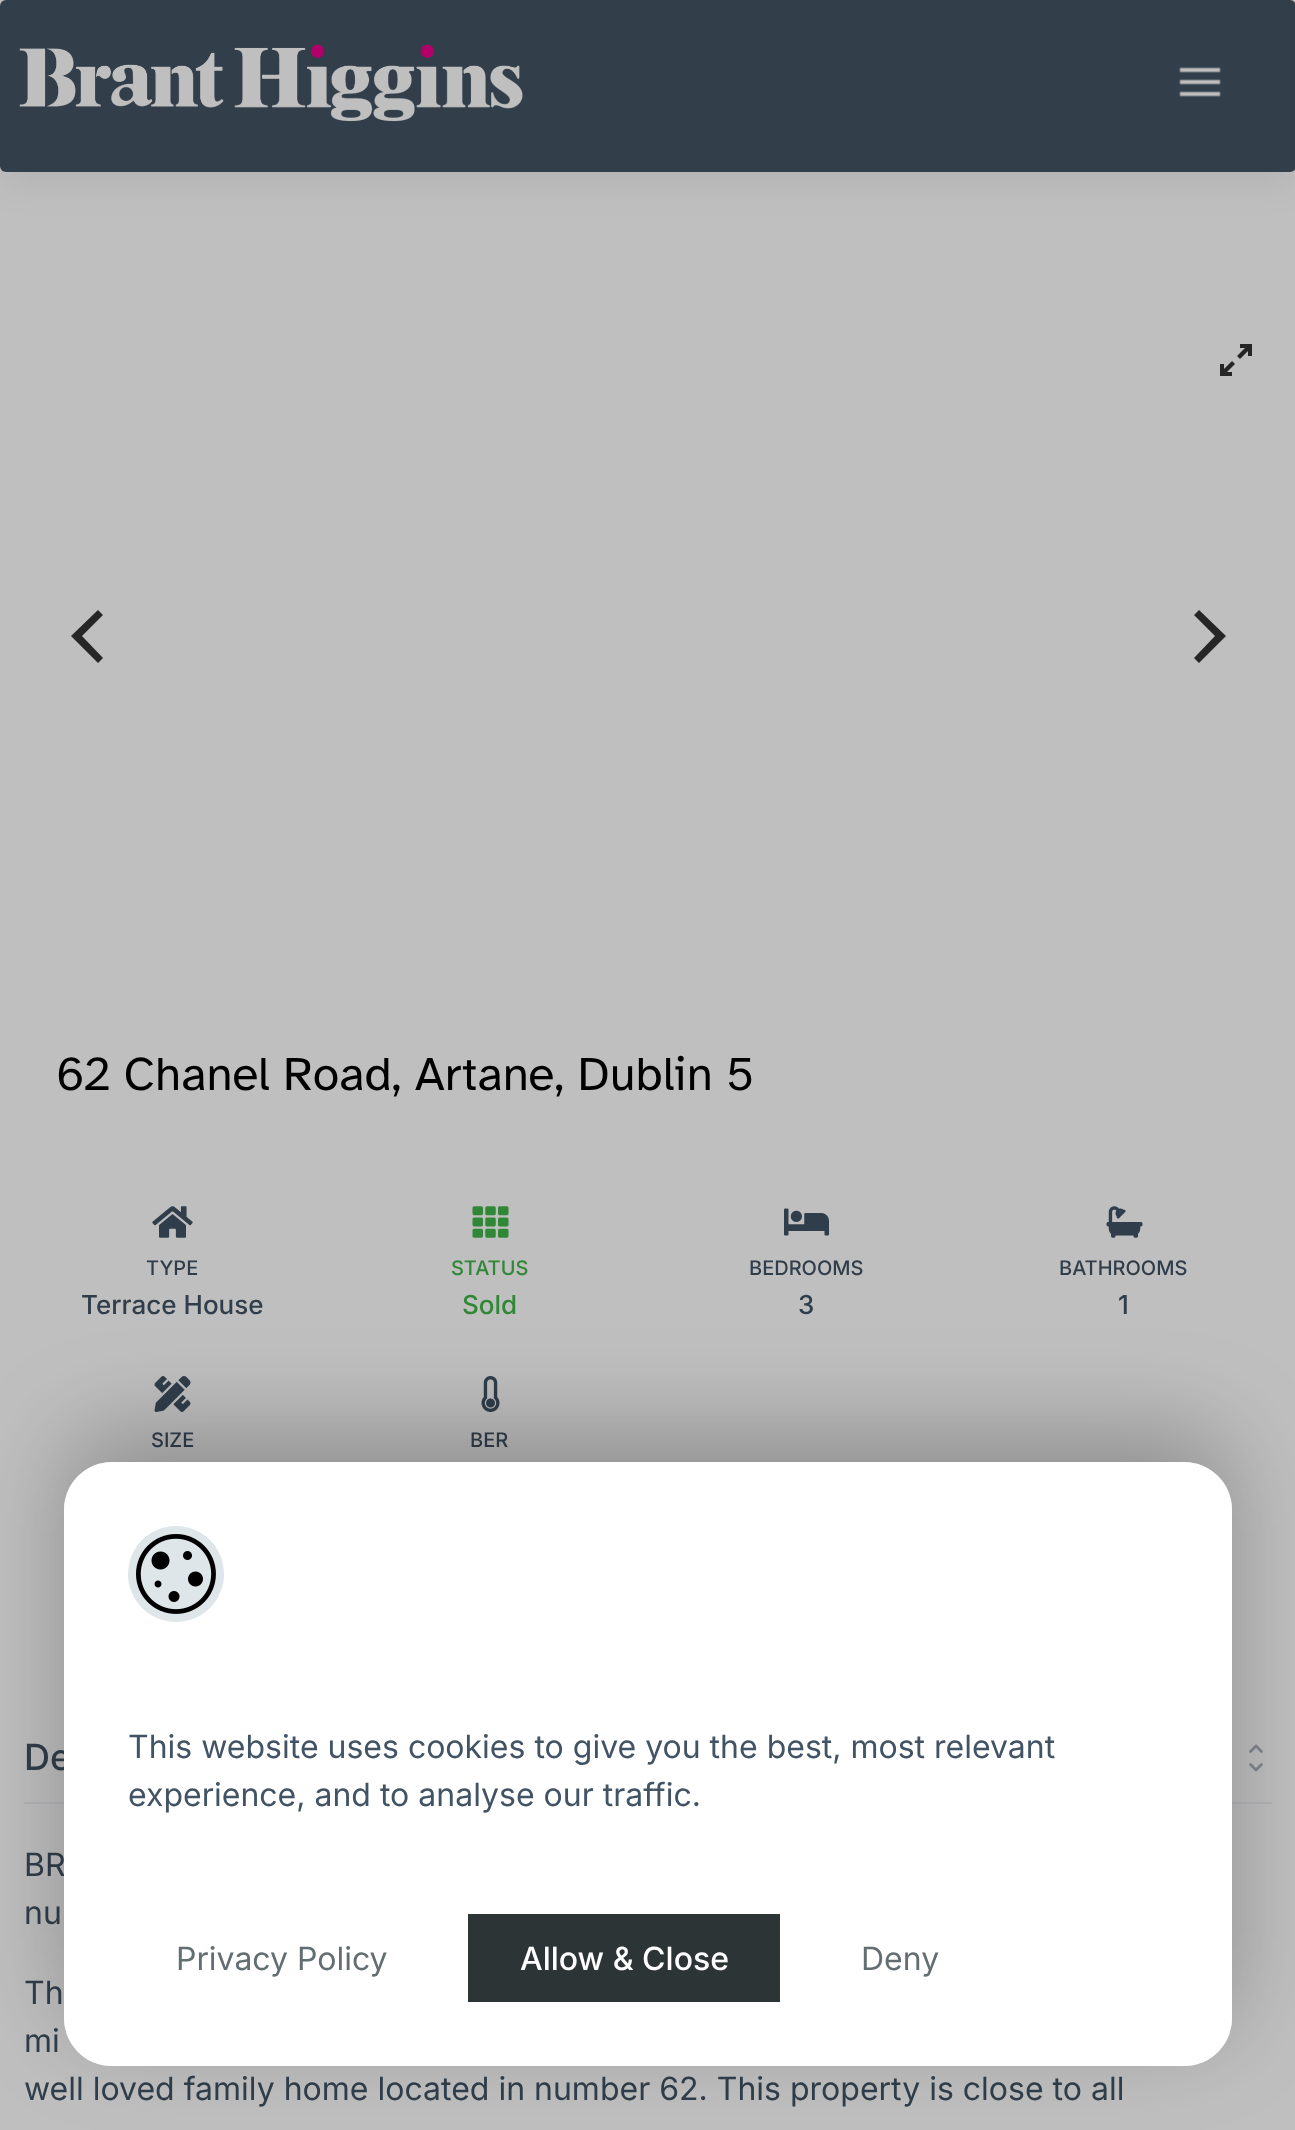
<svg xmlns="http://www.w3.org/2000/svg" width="1295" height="2130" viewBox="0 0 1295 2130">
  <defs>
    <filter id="blur1" x="-50%" y="-200%" width="200%" height="500%"><feGaussianBlur stdDeviation="16"/></filter>
    <filter id="blur2" x="-50%" y="-200%" width="200%" height="500%"><feGaussianBlur stdDeviation="48"/></filter>
  </defs>
  <rect width="100%" height="100%" fill="#ffffff"/>
  <rect x="0" y="16" width="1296" height="172" rx="6" fill="#000000" fill-opacity="0.05" filter="url(#blur1)"/>
  <rect x="0" y="0" width="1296" height="172" rx="6" fill="#435464"/>
  <image x="19" y="44" width="504" height="78" href="img1.png"/>
  <image x="1179" y="67" width="42" height="30" href="img2.png"/>
  <image x="1220" y="344" width="32" height="32" href="img3.png"/>
  <path d="M71 636L98 663L103 658L82 636L103 615L98 610Z" fill="#333333"/>
  <path d="M1226 636L1199 610L1194 615L1215 636L1194 658L1199 663Z" fill="#333333"/>
  <text x="56" y="1090" font-family="Atkinson Hyperlegible" font-size="48" fill="#000000">62 Chanel Road, Artane, Dublin 5</text>
  <image x="152" y="1206" width="41" height="32" href="img4.png"/>
  <text x="146" y="1275" font-family="Inter" font-size="20" font-weight="500" fill="#415364">TYPE</text>
  <text x="81" y="1314" font-family="Inter" font-size="26" font-weight="500" fill="#415364">Terrace House</text>
  <image x="472" y="1206" width="37" height="32" href="img5.png"/>
  <text x="451" y="1275" font-family="Inter" font-size="20" font-weight="500" fill="#41b547">STATUS</text>
  <text x="462" y="1314" font-family="Inter" font-size="26" font-weight="500" fill="#41b547">Sold</text>
  <image x="784" y="1208" width="45" height="28" href="img6.png"/>
  <text x="749" y="1275" font-family="Inter" font-size="20" font-weight="500" fill="#415364">BEDROOMS</text>
  <text x="798" y="1314" font-family="Inter" font-size="26" font-weight="500" fill="#415364">3</text>
  <image x="1106" y="1206" width="37" height="32" href="img7.png"/>
  <text x="1059" y="1275" font-family="Inter" font-size="20" font-weight="500" fill="#415364">BATHROOMS</text>
  <text x="1118" y="1314" font-family="Inter" font-size="26" font-weight="500" fill="#415364">1</text>
  <image x="154" y="1376" width="37" height="36" href="img8.png"/>
  <text x="151" y="1447" font-family="Inter" font-size="20" font-weight="500" fill="#415364">SIZE</text>
  <image x="481" y="1376" width="19" height="36" href="img9.png"/>
  <text x="470" y="1447" font-family="Inter" font-size="20" font-weight="500" fill="#415364">BER</text>
  <path d="M1250.5 1764.5L1256 1770L1261.5 1764.5M1250.5 1751.5L1256 1746L1261.5 1751.5" fill="none" stroke="#adb5bd" stroke-width="2.7" stroke-linecap="round" stroke-linejoin="round"/>
  <rect x="24" y="1802" width="1248" height="2" fill="#f1f2f6"/>
  <text x="24" y="1770" font-family="Inter" font-size="36" font-weight="500" fill="#415364">De</text>
  <text x="24" y="1876" font-family="Inter" font-size="32" fill="#415364">BR</text>
  <text x="24" y="1924" font-family="Inter" font-size="32" fill="#415364">nu</text>
  <text x="24" y="2004" font-family="Inter" font-size="32" fill="#415364">Th</text>
  <text x="24" y="2052" font-family="Inter" font-size="32" fill="#415364">mi</text>
  <text x="24" y="2100" font-family="Inter" font-size="32" fill="#415364">well loved family home located in number 62. This property is close to all</text>
  <rect x="-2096" y="-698" width="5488" height="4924" rx="2208" fill="none" stroke="#000000" stroke-opacity="0.25" stroke-width="4320"/>
  <rect x="64" y="1430" width="1168" height="604" rx="48" fill="#000000" fill-opacity="0.25" filter="url(#blur2)"/>
  <rect x="64" y="1462" width="1168" height="604" rx="48" fill="#ffffff"/>
  <circle cx="176" cy="1574" r="48" fill="#dfe6e9"/>
  <image x="136" y="1534" width="80" height="80" href="img10.png"/>
  <text x="128" y="1758" font-family="Inter" font-size="32" fill="#415364">This website uses cookies to give you the best, most relevant</text>
  <text x="128" y="1806" font-family="Inter" font-size="32" fill="#415364">experience, and to analyse our traffic.</text>
  <text x="176" y="1970" font-family="Inter" font-size="32" fill="#636e72">Privacy Policy</text>
  <rect x="468" y="1914" width="312" height="88" fill="#2d3436"/>
  <text x="520" y="1970" font-family="Inter" font-size="32" font-weight="500" fill="#ffffff">Allow &amp; Close</text>
  <text x="861" y="1970" font-family="Inter" font-size="32" fill="#636e72">Deny</text>
</svg>
